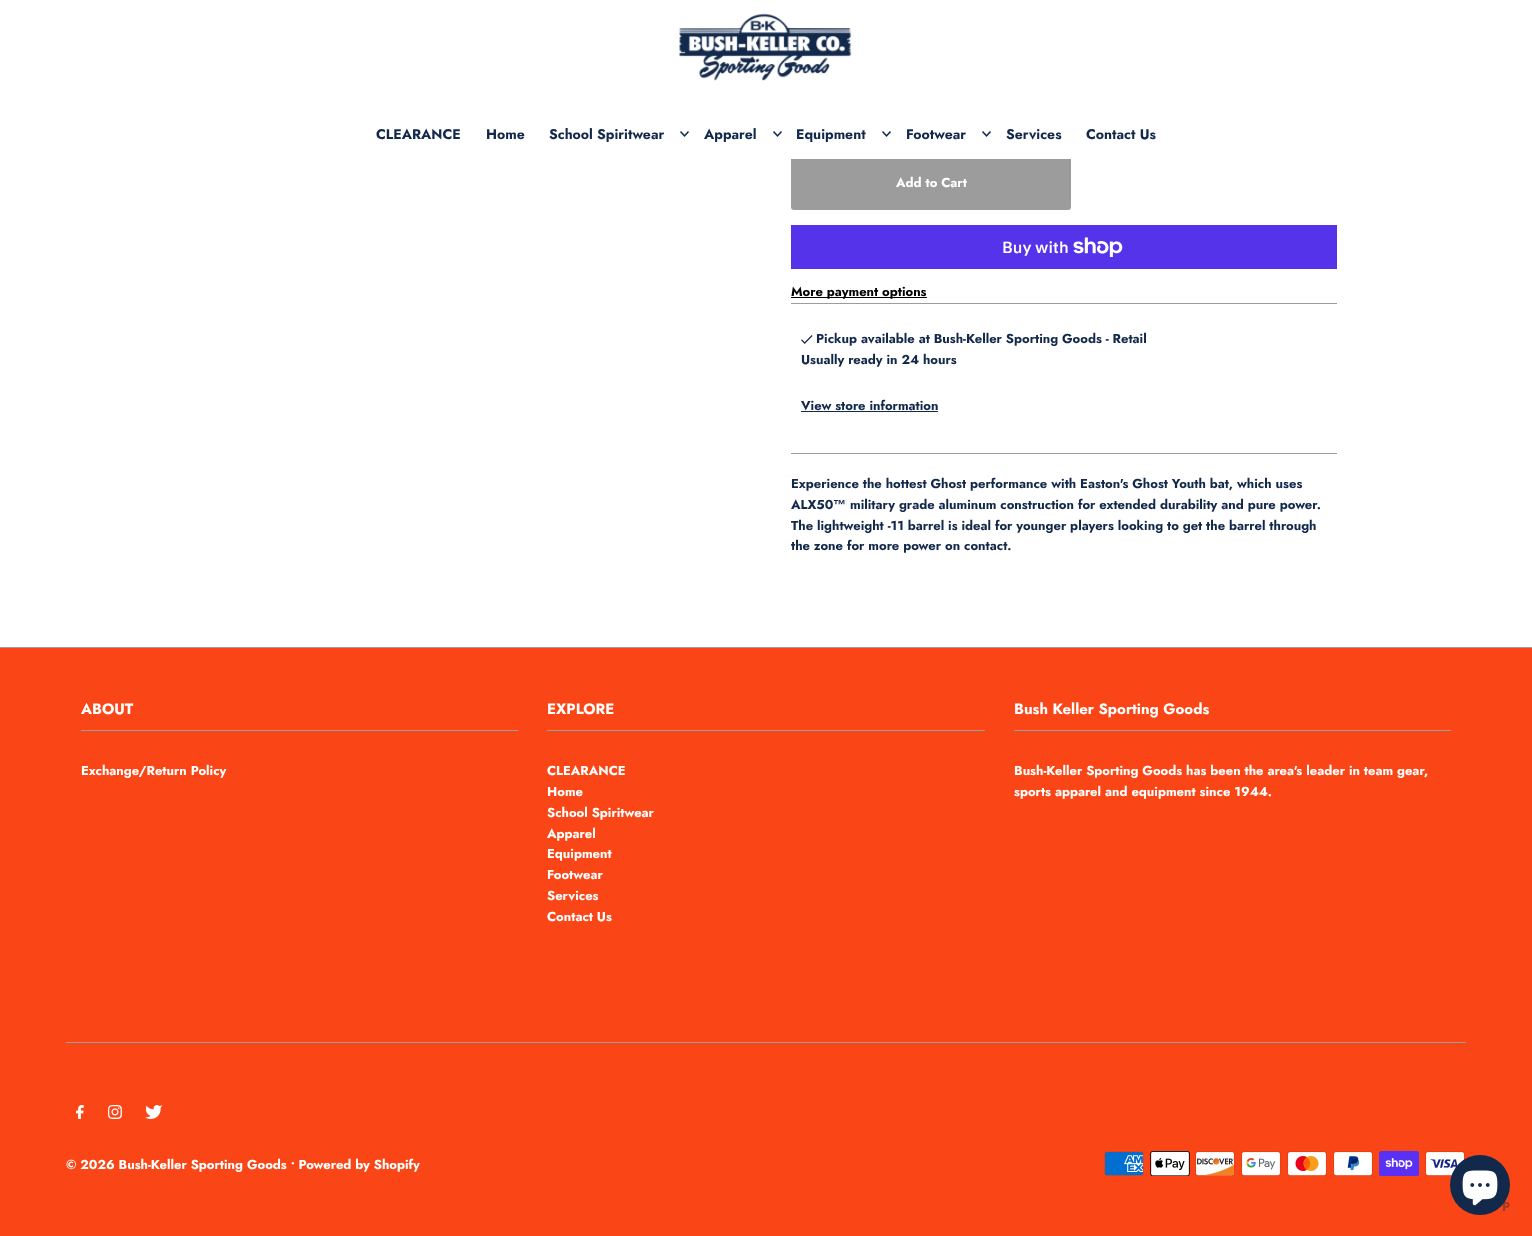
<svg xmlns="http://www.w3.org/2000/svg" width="1532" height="1236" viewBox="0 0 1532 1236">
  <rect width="100%" height="100%" fill="#ffffff"/>
  <rect x="791" y="156" width="280" height="54" rx="3" fill="#9c9c9c"/>
  <rect x="791" y="156" width="280" height="3" fill="#ffffff"/>
  <image x="679" y="13" width="173" height="68" href="img1.png"/>
  <text x="376" y="139" font-family="Jost" font-size="14" font-weight="bold" fill="#13294b">CLEARANCE</text>
  <text x="486" y="139" font-family="Jost" font-size="14" font-weight="bold" fill="#13294b">Home</text>
  <text x="549" y="139" font-family="Jost" font-size="14" font-weight="bold" fill="#13294b">School Spiritwear</text>
  <image x="680" y="131" width="9" height="6" href="img2.png"/>
  <text x="704" y="139" font-family="Jost" font-size="14" font-weight="bold" fill="#13294b">Apparel</text>
  <image x="773" y="131" width="9" height="6" href="img2.png"/>
  <text x="796" y="139" font-family="Jost" font-size="14" font-weight="bold" fill="#13294b">Equipment</text>
  <image x="882" y="131" width="9" height="6" href="img2.png"/>
  <text x="906" y="139" font-family="Jost" font-size="14" font-weight="bold" fill="#13294b">Footwear</text>
  <image x="982" y="131" width="9" height="6" href="img2.png"/>
  <text x="1006" y="139" font-family="Jost" font-size="14" font-weight="bold" fill="#13294b">Services</text>
  <text x="1086" y="139" font-family="Jost" font-size="14" font-weight="bold" fill="#13294b">Contact Us</text>
  <rect x="791" y="303" width="546" height="1" fill="#9c9c9c"/>
  <text x="896" y="187" font-family="Jost" font-size="13" font-weight="bold" fill="#ffffff">Add to Cart</text>
  <rect x="791" y="225" width="546" height="44" fill="#5433eb"/>
  <text x="1002" y="253" font-family="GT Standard" font-size="16" font-weight="600" fill="#ffffff">Buy with</text>
  <image x="1073" y="237" width="50" height="20" href="img3.png"/>
  <rect x="791" y="297" width="136" height="1" fill="#000000"/>
  <text x="791" y="296" font-family="Jost" font-size="13" font-weight="bold" fill="#000000">More payment options</text>
  <rect x="791" y="453" width="546" height="1" fill="#9c9c9c"/>
  <image x="801" y="335" width="12" height="9" href="img4.png"/>
  <text x="816" y="343" font-family="Jost" font-size="13" font-weight="bold" fill="#13294b">Pickup available at Bush-Keller Sporting Goods - Retail</text>
  <text x="801" y="364" font-family="Jost" font-size="13" font-weight="bold" fill="#13294b">Usually ready in 24 hours</text>
  <text x="801" y="410" font-family="Jost" font-size="13" font-weight="bold" fill="#13294b">View store information</text>
  <rect x="801" y="411" width="137" height="1" fill="#13294b"/>
  <text x="791" y="488" font-family="Jost" font-size="13" font-weight="bold" fill="#13294b">Experience the hottest Ghost performance with Easton's Ghost Youth bat, which uses</text>
  <text x="791" y="509" font-family="Jost" font-size="13" font-weight="bold" fill="#13294b">ALX50</text>
  <text x="833" y="509" font-family="Liberation Sans" font-size="13" font-weight="bold" fill="#13294b">™</text>
  <text x="850" y="509" font-family="Jost" font-size="13" font-weight="bold" fill="#13294b">military grade aluminum construction for extended durability and pure power.</text>
  <text x="791" y="530" font-family="Jost" font-size="13" font-weight="bold" fill="#13294b">The lightweight -11 barrel is ideal for younger players looking to get the barrel through</text>
  <text x="791" y="550" font-family="Jost" font-size="13" font-weight="bold" fill="#13294b">the zone for more power on contact.</text>
  <rect x="0" y="648" width="1532" height="588" fill="#fa4616"/>
  <rect x="0" y="647" width="1532" height="1" fill="#9c9c9c"/>
  <rect x="81" y="730" width="437" height="1" fill="#9c9c9c"/>
  <text x="81" y="714" font-family="Jost" font-size="15" font-weight="bold" fill="#ffffff">ABOUT</text>
  <text x="81" y="775" font-family="Jost" font-size="13" font-weight="bold" fill="#ffffff">Exchange/Return Policy</text>
  <rect x="547" y="730" width="438" height="1" fill="#9c9c9c"/>
  <text x="547" y="714" font-family="Jost" font-size="15" font-weight="bold" fill="#ffffff">EXPLORE</text>
  <text x="547" y="775" font-family="Jost" font-size="13" font-weight="bold" fill="#ffffff">CLEARANCE</text>
  <text x="547" y="796" font-family="Jost" font-size="13" font-weight="bold" fill="#ffffff">Home</text>
  <text x="547" y="817" font-family="Jost" font-size="13" font-weight="bold" fill="#ffffff">School Spiritwear</text>
  <text x="547" y="838" font-family="Jost" font-size="13" font-weight="bold" fill="#ffffff">Apparel</text>
  <text x="547" y="858" font-family="Jost" font-size="13" font-weight="bold" fill="#ffffff">Equipment</text>
  <text x="547" y="879" font-family="Jost" font-size="13" font-weight="bold" fill="#ffffff">Footwear</text>
  <text x="547" y="900" font-family="Jost" font-size="13" font-weight="bold" fill="#ffffff">Services</text>
  <text x="547" y="921" font-family="Jost" font-size="13" font-weight="bold" fill="#ffffff">Contact Us</text>
  <rect x="1014" y="730" width="437" height="1" fill="#9c9c9c"/>
  <text x="1014" y="714" font-family="Jost" font-size="15" font-weight="bold" fill="#ffffff">Bush Keller Sporting Goods</text>
  <text x="1014" y="775" font-family="Jost" font-size="13" font-weight="bold" fill="#ffffff">Bush-Keller Sporting Goods has been the area's leader in team gear,</text>
  <text x="1014" y="796" font-family="Jost" font-size="13" font-weight="bold" fill="#ffffff">sports apparel and equipment since 1944.</text>
  <rect x="66" y="1042" width="1400" height="1" fill="#9c9c9c"/>
  <image x="76" y="1105" width="8" height="14" href="img5.png"/>
  <image x="108" y="1105" width="14" height="14" href="img6.png"/>
  <image x="145" y="1105" width="17" height="14" href="img7.png"/>
  <text x="66" y="1169" font-family="Jost" font-size="13" font-weight="bold" fill="#ffffff">© 2026 Bush-Keller Sporting Goods • Powered by Shopify</text>
  <image x="1104" y="1151" width="40" height="25" href="img8.png"/>
  <image x="1150" y="1151" width="40" height="25" href="img9.png"/>
  <image x="1195" y="1151" width="40" height="25" href="img10.png"/>
  <image x="1241" y="1151" width="40" height="25" href="img11.png"/>
  <image x="1287" y="1151" width="40" height="25" href="img12.png"/>
  <image x="1333" y="1151" width="40" height="25" href="img13.png"/>
  <image x="1379" y="1151" width="40" height="25" href="img14.png"/>
  <image x="1425" y="1151" width="40" height="25" href="img15.png"/>
  <text x="1502" y="1211" font-family="Jost" font-size="13" font-weight="bold" fill="#9e3a2b">P</text>
  <circle cx="1480" cy="1185" r="30" fill="#13294b"/>
  <image x="1462" y="1170" width="36" height="36" href="img16.png"/>
</svg>
